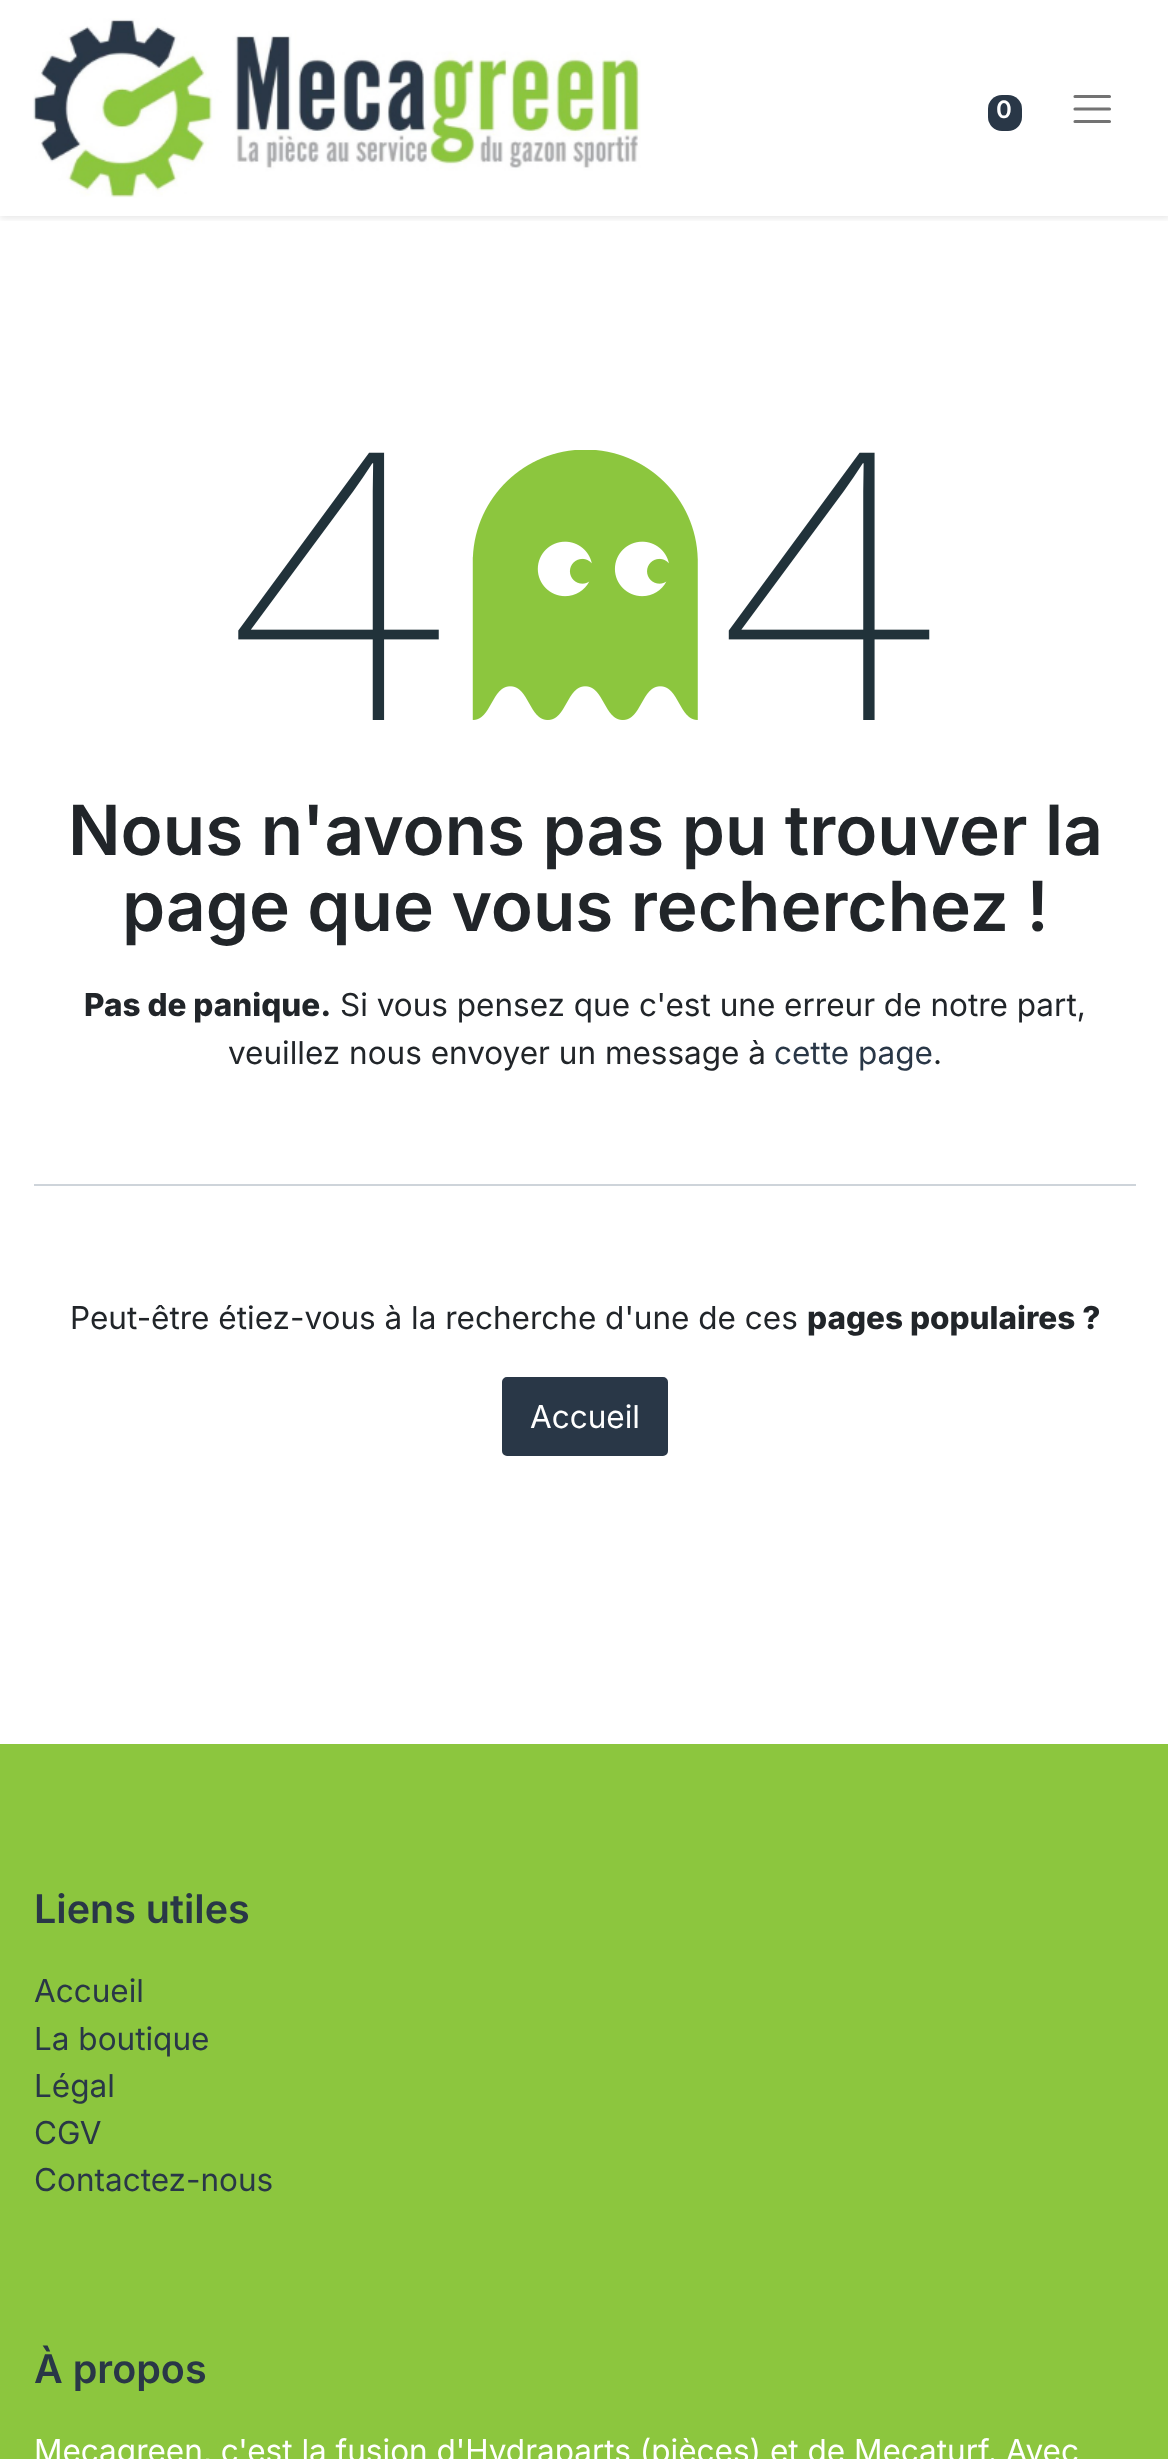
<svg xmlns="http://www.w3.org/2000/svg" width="1168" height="2459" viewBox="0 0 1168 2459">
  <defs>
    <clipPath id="clip1"><rect x="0" y="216" width="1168" height="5"/></clipPath>
    <filter id="blur1" x="-50%" y="-200%" width="200%" height="500%"><feGaussianBlur stdDeviation="3.5"/></filter>
  </defs>
  <rect width="100%" height="100%" fill="#ffffff"/>
  <g clip-path="url(#clip1)">
    <rect x="0" y="2" width="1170" height="216" fill="#000000" fill-opacity="0.1" filter="url(#blur1)"/>
  </g>
  <image x="33" y="18" width="608" height="180" href="img1.png"/>
  <rect x="988" y="95" width="34" height="36" rx="14" fill="#293747"/>
  <text x="996" y="118" font-family="Inter" font-size="24" font-weight="600" fill="#ffffff">0</text>
  <path d="M1075 96.5H1109.5M1075 109H1109.5M1075 121.5H1109.5" fill="none" stroke="#737373" stroke-width="3.1" stroke-linecap="round"/>
  <image x="238" y="450" width="692" height="270" href="img2.png"/>
  <text x="68" y="855" font-family="Inter" font-size="69.25" font-weight="600" fill="#212529">Nous n'avons pas pu trouver la</text>
  <text x="122" y="931" font-family="Inter" font-size="69.25" font-weight="600" fill="#212529">page que vous recherchez !</text>
  <text x="84" y="1016" font-family="Inter" font-size="31.5" font-weight="800" fill="#212529">Pas de panique.</text>
  <text x="340" y="1016" font-family="Inter" font-size="31.5" fill="#212529">Si vous pensez que c'est une erreur de notre part,</text>
  <text x="228" y="1064" font-family="Inter" font-size="31.5" fill="#212529">veuillez nous envoyer un message à</text>
  <text x="774" y="1064" font-family="Inter" font-size="31.5" fill="#293747">cette page</text>
  <text x="933" y="1064" font-family="Inter" font-size="31.5" fill="#212529">.</text>
  <rect x="34" y="1184" width="1102" height="2" fill="#ced4da"/>
  <text x="70" y="1329" font-family="Inter" font-size="31.5" fill="#212529">Peut-être étiez-vous à la recherche d'une de ces</text>
  <text x="807" y="1329" font-family="Inter" font-size="31.5" font-weight="800" fill="#212529">pages populaires ?</text>
  <rect x="503" y="1378" width="164" height="77" rx="4" fill="#293747" stroke="#293747" stroke-width="2"/>
  <text x="530" y="1428" font-family="Inter" font-size="31.5" fill="#ffffff">Accueil</text>
  <rect x="0" y="1744" width="1168" height="715" fill="#8cc63e"/>
  <text x="34" y="1923" font-family="Inter" font-size="39.5" font-weight="600" fill="#293747">Liens utiles</text>
  <text x="34" y="2002" font-family="Inter" font-size="31.5" fill="#293747">Accueil</text>
  <text x="34" y="2050" font-family="Inter" font-size="31.5" fill="#293747">La boutique</text>
  <text x="34" y="2097" font-family="Inter" font-size="31.5" fill="#293747">Légal</text>
  <text x="34" y="2144" font-family="Inter" font-size="31.5" fill="#293747">CGV</text>
  <text x="34" y="2191" font-family="Inter" font-size="31.5" fill="#293747">Contactez-nous</text>
  <text x="34" y="2383" font-family="Inter" font-size="39.5" font-weight="600" fill="#293747">À propos</text>
  <text x="34" y="2462" font-family="Inter" font-size="31.5" fill="#ffffff">Mecagreen, c'est la fusion d'Hydraparts (pièces) et de Mecaturf. Avec</text>
</svg>
